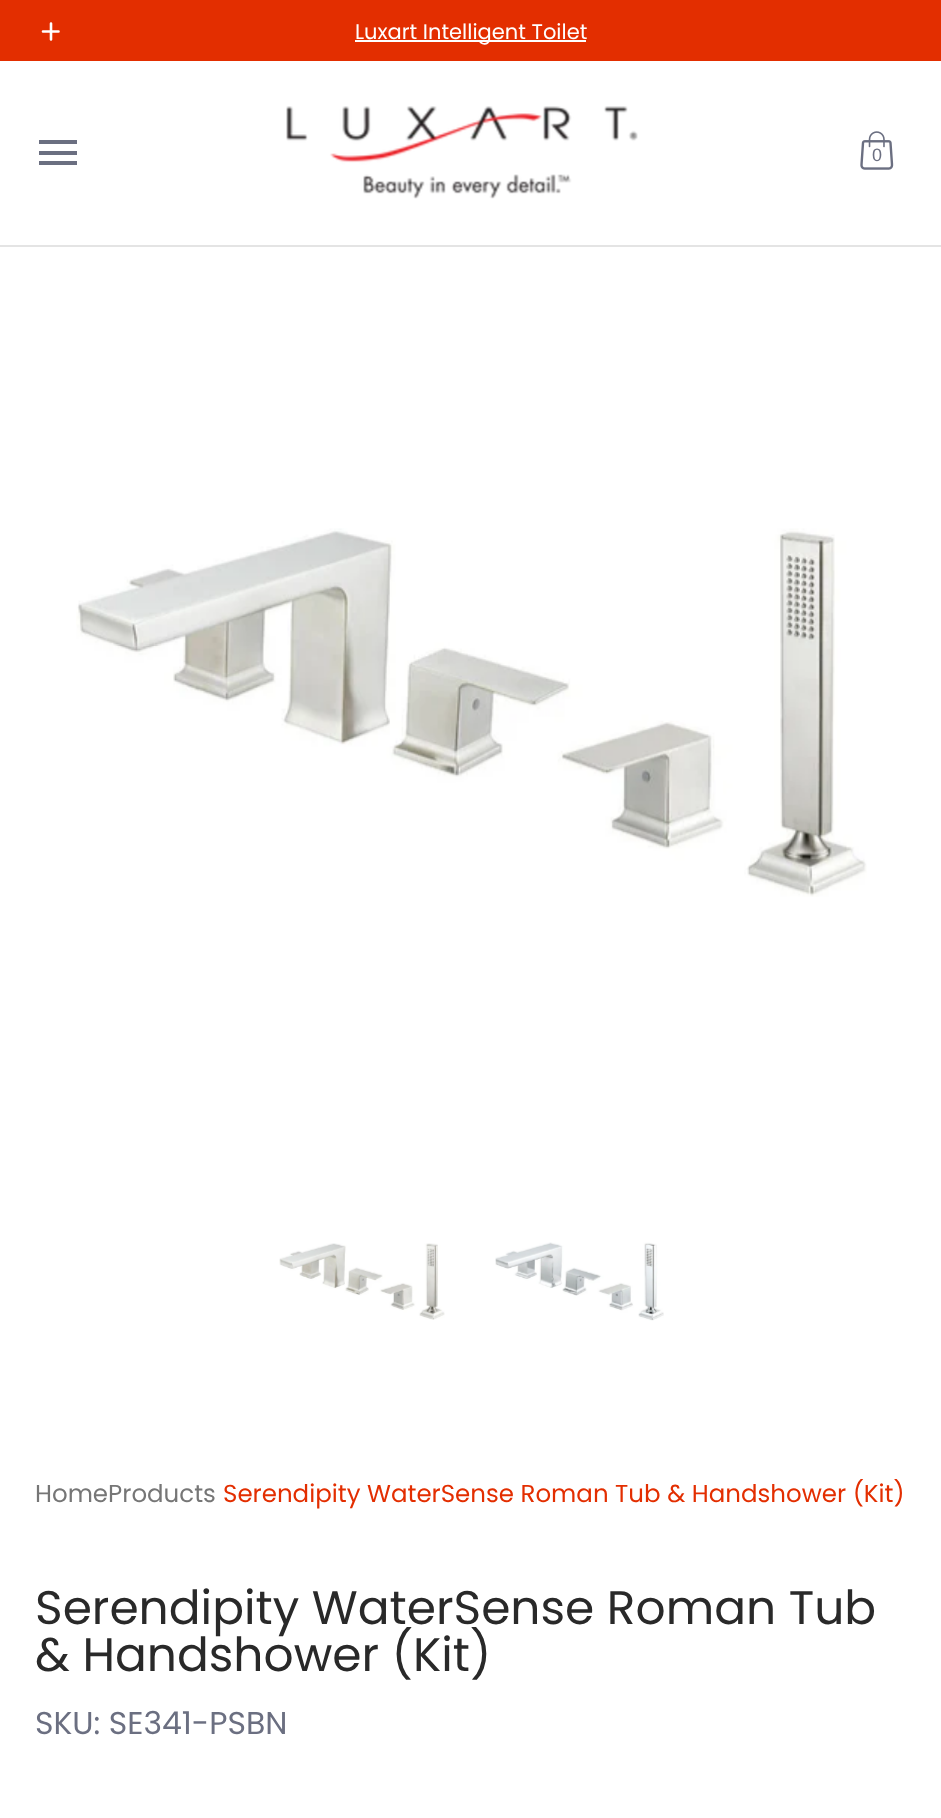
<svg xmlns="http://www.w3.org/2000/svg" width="941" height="1818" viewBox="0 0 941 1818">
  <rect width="100%" height="100%" fill="#ffffff"/>
  <rect x="0" y="0" width="941" height="61" fill="#e32e00"/>
  <path d="M51 23.5V39.5M58.5 31.5H43" fill="none" stroke="#ffffff" stroke-width="2.6" stroke-linecap="round" stroke-linejoin="round"/>
  <rect x="355" y="40" width="231" height="2" fill="#ffffff"/>
  <text x="355" y="39" font-family="Poppins" font-size="21" fill="#ffffff">Luxart Intelligent Toilet</text>
  <rect x="0" y="245" width="941" height="2" fill="#e4e4e4"/>
  <rect x="39" y="140" width="38" height="4" fill="#6b6f81"/>
  <rect x="39" y="161" width="38" height="4" fill="#6b6f81"/>
  <rect x="39" y="151" width="38" height="4" fill="#6b6f81"/>
  <image x="286" y="106" width="352" height="93" href="img1.png"/>
  <image x="860" y="131" width="34" height="39" href="img2.png"/>
  <circle cx="876.5" cy="155.5" r="10.5" fill="#ffffff"/>
  <text x="872" y="161" font-family="Liberation Sans" font-size="18" fill="#6b6f81">0</text>
  <image x="76" y="528" width="791" height="369" href="img3.png"/>
  <image x="279" y="1243" width="166" height="77" href="img4.png"/>
  <image x="495" y="1242" width="169" height="79" href="img5.png"/>
  <text x="35" y="1502" font-family="Poppins" font-size="24.5" fill="#767676">HomeProducts</text>
  <text x="223" y="1502" font-family="Poppins" font-size="24.5" fill="#e32e00">Serendipity WaterSense Roman Tub &amp; Handshower (Kit)</text>
  <text x="35" y="1624" font-family="Poppins" font-size="47.1" fill="#292929">Serendipity WaterSense Roman Tub</text>
  <text x="35" y="1671" font-family="Poppins" font-size="47.1" fill="#292929">&amp; Handshower (Kit)</text>
  <text x="35" y="1734" font-family="Poppins" font-size="31.5" fill="#6b6f81">SKU: SE341-PSBN</text>
</svg>
